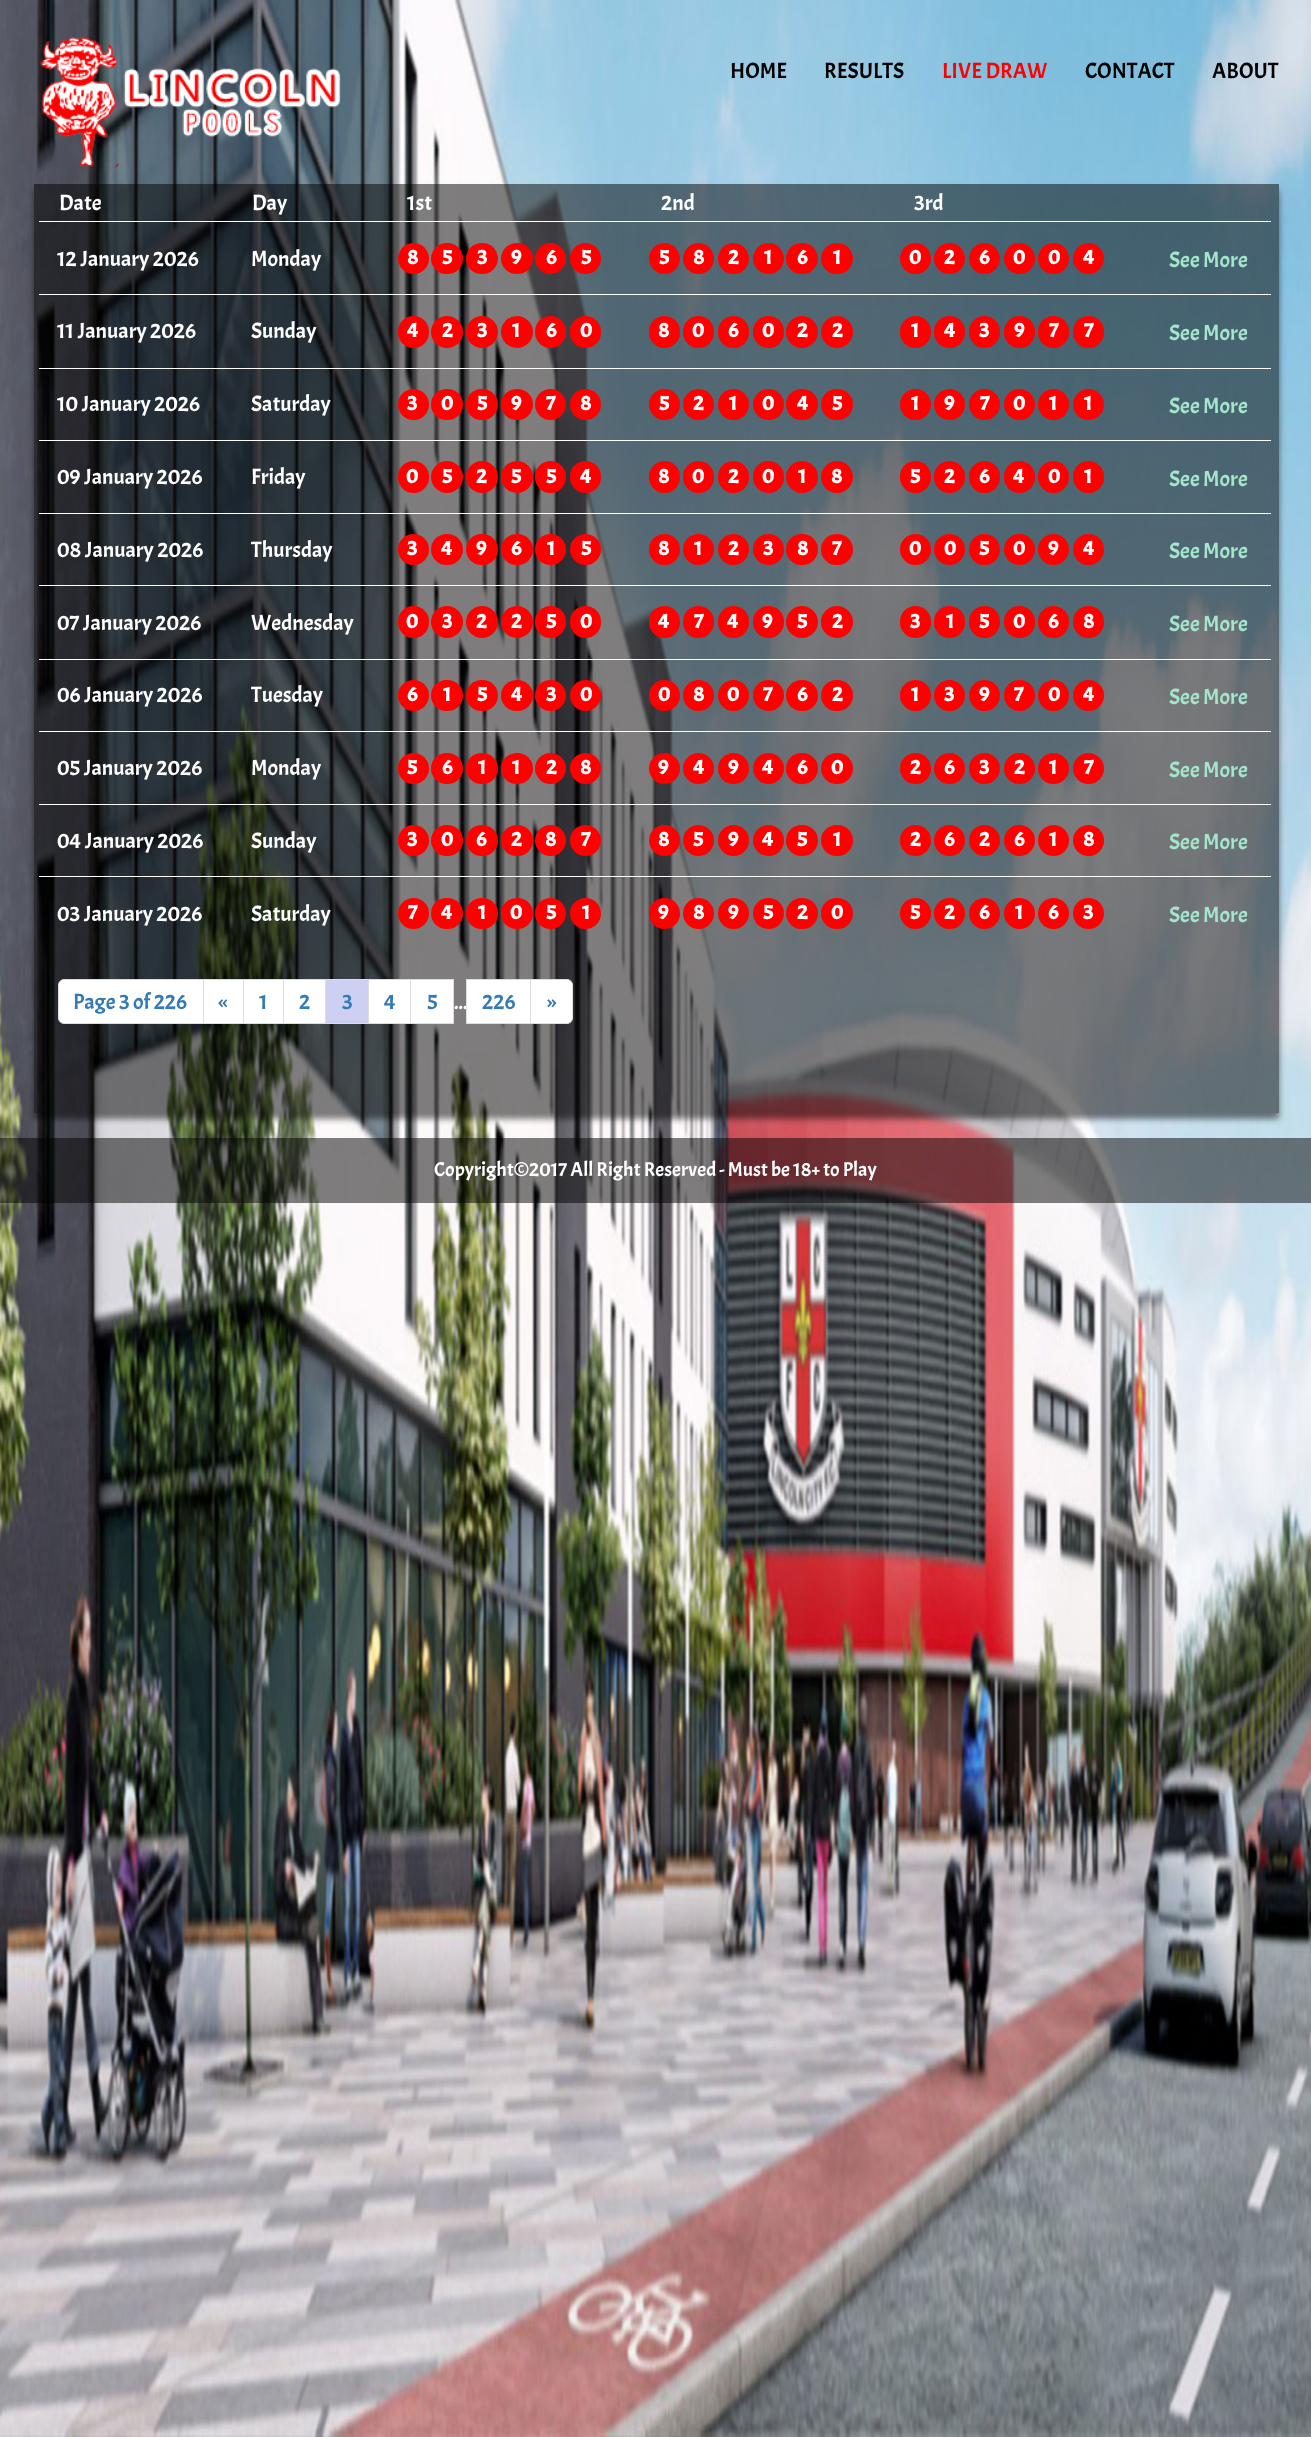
<svg xmlns="http://www.w3.org/2000/svg" width="1311" height="2437" viewBox="0 0 1311 2437">
  <defs>
    <clipPath id="clip1"><path d="M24 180H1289V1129H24ZM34 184H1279V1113H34Z" clip-rule="evenodd"/></clipPath>
    <filter id="blur1" x="-50%" y="-200%" width="200%" height="500%"><feGaussianBlur stdDeviation="3"/></filter>
  </defs>
  <rect width="100%" height="100%" fill="#ffffff"/>
  <image x="0" y="0" width="1311" height="2437" href="img1.png"/>
  <image x="39" y="37" width="302" height="131" href="img2.png"/>
  <text x="730" y="78" font-family="Acme" font-size="22" fill="#000000">HOME</text>
  <text x="824" y="78" font-family="Acme" font-size="22" fill="#000000">RESULTS</text>
  <text x="942" y="78" font-family="Acme" font-size="22" fill="#ff0000">LIVE DRAW</text>
  <text x="1085" y="78" font-family="Acme" font-size="22" fill="#000000">CONTACT</text>
  <text x="1212" y="78" font-family="Acme" font-size="22" fill="#000000">ABOUT</text>
  <g clip-path="url(#clip1)">
    <rect x="34" y="190" width="1245" height="929" fill="#000000" fill-opacity="0.5" filter="url(#blur1)"/>
  </g>
  <rect x="34" y="184" width="1245" height="929" fill="#000000" fill-opacity="0.5"/>
  <text x="59" y="210" font-family="Acme" font-size="22" fill="#ffffff">Date</text>
  <text x="252" y="210" font-family="Acme" font-size="22" fill="#ffffff">Day</text>
  <text x="407" y="210" font-family="Acme" font-size="22" fill="#ffffff">1st</text>
  <text x="661" y="210" font-family="Acme" font-size="22" fill="#ffffff">2nd</text>
  <text x="914" y="210" font-family="Acme" font-size="22" fill="#ffffff">3rd</text>
  <rect x="39" y="221" width="1232" height="1" fill="#ffffff"/>
  <text x="57" y="266" font-family="Acme" font-size="22" fill="#ffffff">12 January 2026</text>
  <text x="251" y="266" font-family="Acme" font-size="22" fill="#ffffff">Monday</text>
  <circle cx="413.5" cy="258.5" r="15.5" fill="#ff0000"/>
  <text x="407" y="264" font-family="Acme" font-size="21" font-weight="bold" fill="#ffffff">8</text>
  <rect x="431" y="243" width="32" height="31" rx="15.5" fill="#ff0000"/>
  <text x="442" y="264" font-family="Acme" font-size="21" font-weight="bold" fill="#ffffff">5</text>
  <rect x="466" y="243" width="32" height="31" rx="15.5" fill="#ff0000"/>
  <text x="477" y="264" font-family="Acme" font-size="21" font-weight="bold" fill="#ffffff">3</text>
  <rect x="501" y="243" width="32" height="31" rx="15.5" fill="#ff0000"/>
  <text x="511" y="264" font-family="Acme" font-size="21" font-weight="bold" fill="#ffffff">9</text>
  <circle cx="550.5" cy="258.5" r="15.5" fill="#ff0000"/>
  <text x="546" y="264" font-family="Acme" font-size="21" font-weight="bold" fill="#ffffff">6</text>
  <circle cx="585.5" cy="258.5" r="15.5" fill="#ff0000"/>
  <text x="581" y="264" font-family="Acme" font-size="21" font-weight="bold" fill="#ffffff">5</text>
  <circle cx="664.5" cy="258.5" r="15.5" fill="#ff0000"/>
  <text x="659" y="264" font-family="Acme" font-size="21" font-weight="bold" fill="#ffffff">5</text>
  <circle cx="698.5" cy="258.5" r="15.5" fill="#ff0000"/>
  <text x="693" y="264" font-family="Acme" font-size="21" font-weight="bold" fill="#ffffff">8</text>
  <circle cx="733.5" cy="258.5" r="15.5" fill="#ff0000"/>
  <text x="728" y="264" font-family="Acme" font-size="21" font-weight="bold" fill="#ffffff">2</text>
  <circle cx="768.5" cy="258.5" r="15.5" fill="#ff0000"/>
  <text x="764" y="264" font-family="Acme" font-size="21" font-weight="bold" fill="#ffffff">1</text>
  <rect x="786" y="243" width="32" height="31" rx="15.5" fill="#ff0000"/>
  <text x="797" y="264" font-family="Acme" font-size="21" font-weight="bold" fill="#ffffff">6</text>
  <rect x="821" y="243" width="32" height="31" rx="15.5" fill="#ff0000"/>
  <text x="833" y="264" font-family="Acme" font-size="21" font-weight="bold" fill="#ffffff">1</text>
  <circle cx="915.5" cy="258.5" r="15.5" fill="#ff0000"/>
  <text x="909" y="264" font-family="Acme" font-size="21" font-weight="bold" fill="#ffffff">0</text>
  <circle cx="949.5" cy="258.5" r="15.5" fill="#ff0000"/>
  <text x="944" y="264" font-family="Acme" font-size="21" font-weight="bold" fill="#ffffff">2</text>
  <circle cx="984.5" cy="258.5" r="15.5" fill="#ff0000"/>
  <text x="979" y="264" font-family="Acme" font-size="21" font-weight="bold" fill="#ffffff">6</text>
  <circle cx="1019.5" cy="258.5" r="15.5" fill="#ff0000"/>
  <text x="1013" y="264" font-family="Acme" font-size="21" font-weight="bold" fill="#ffffff">0</text>
  <circle cx="1053.5" cy="258.5" r="15.5" fill="#ff0000"/>
  <text x="1048" y="264" font-family="Acme" font-size="21" font-weight="bold" fill="#ffffff">0</text>
  <circle cx="1088.5" cy="258.5" r="15.5" fill="#ff0000"/>
  <text x="1083" y="264" font-family="Acme" font-size="21" font-weight="bold" fill="#ffffff">4</text>
  <text x="1169" y="267" font-family="Acme" font-size="22" fill="#a4e6cb">See More</text>
  <rect x="39" y="294" width="1232" height="1" fill="#ffffff"/>
  <text x="57" y="338" font-family="Acme" font-size="22" fill="#ffffff">11 January 2026</text>
  <text x="251" y="338" font-family="Acme" font-size="22" fill="#ffffff">Sunday</text>
  <rect x="398" y="316" width="31" height="32" rx="15.5" fill="#ff0000"/>
  <text x="407" y="337" font-family="Acme" font-size="21" font-weight="bold" fill="#ffffff">4</text>
  <circle cx="447" cy="332" r="16" fill="#ff0000"/>
  <text x="442" y="337" font-family="Acme" font-size="21" font-weight="bold" fill="#ffffff">2</text>
  <circle cx="482" cy="332" r="16" fill="#ff0000"/>
  <text x="477" y="337" font-family="Acme" font-size="21" font-weight="bold" fill="#ffffff">3</text>
  <circle cx="517" cy="332" r="16" fill="#ff0000"/>
  <text x="512" y="337" font-family="Acme" font-size="21" font-weight="bold" fill="#ffffff">1</text>
  <rect x="535" y="316" width="31" height="32" rx="15.5" fill="#ff0000"/>
  <text x="546" y="337" font-family="Acme" font-size="21" font-weight="bold" fill="#ffffff">6</text>
  <rect x="570" y="316" width="31" height="32" rx="15.5" fill="#ff0000"/>
  <text x="580" y="337" font-family="Acme" font-size="21" font-weight="bold" fill="#ffffff">0</text>
  <rect x="649" y="316" width="31" height="32" rx="15.5" fill="#ff0000"/>
  <text x="658" y="337" font-family="Acme" font-size="21" font-weight="bold" fill="#ffffff">8</text>
  <rect x="683" y="316" width="31" height="32" rx="15.5" fill="#ff0000"/>
  <text x="692" y="337" font-family="Acme" font-size="21" font-weight="bold" fill="#ffffff">0</text>
  <rect x="718" y="316" width="31" height="32" rx="15.5" fill="#ff0000"/>
  <text x="728" y="337" font-family="Acme" font-size="21" font-weight="bold" fill="#ffffff">6</text>
  <rect x="753" y="316" width="31" height="32" rx="15.5" fill="#ff0000"/>
  <text x="762" y="337" font-family="Acme" font-size="21" font-weight="bold" fill="#ffffff">0</text>
  <circle cx="802" cy="332" r="16" fill="#ff0000"/>
  <text x="797" y="337" font-family="Acme" font-size="21" font-weight="bold" fill="#ffffff">2</text>
  <circle cx="837" cy="332" r="16" fill="#ff0000"/>
  <text x="832" y="337" font-family="Acme" font-size="21" font-weight="bold" fill="#ffffff">2</text>
  <rect x="900" y="316" width="31" height="32" rx="15.5" fill="#ff0000"/>
  <text x="911" y="337" font-family="Acme" font-size="21" font-weight="bold" fill="#ffffff">1</text>
  <rect x="934" y="316" width="31" height="32" rx="15.5" fill="#ff0000"/>
  <text x="944" y="337" font-family="Acme" font-size="21" font-weight="bold" fill="#ffffff">4</text>
  <rect x="969" y="316" width="31" height="32" rx="15.5" fill="#ff0000"/>
  <text x="979" y="337" font-family="Acme" font-size="21" font-weight="bold" fill="#ffffff">3</text>
  <rect x="1004" y="316" width="31" height="32" rx="15.5" fill="#ff0000"/>
  <text x="1014" y="337" font-family="Acme" font-size="21" font-weight="bold" fill="#ffffff">9</text>
  <rect x="1038" y="316" width="31" height="32" rx="15.5" fill="#ff0000"/>
  <text x="1049" y="337" font-family="Acme" font-size="21" font-weight="bold" fill="#ffffff">7</text>
  <rect x="1073" y="316" width="31" height="32" rx="15.5" fill="#ff0000"/>
  <text x="1084" y="337" font-family="Acme" font-size="21" font-weight="bold" fill="#ffffff">7</text>
  <text x="1169" y="340" font-family="Acme" font-size="22" fill="#a4e6cb">See More</text>
  <rect x="39" y="368" width="1232" height="1" fill="#ffffff"/>
  <text x="57" y="411" font-family="Acme" font-size="22" fill="#ffffff">10 January 2026</text>
  <text x="251" y="411" font-family="Acme" font-size="22" fill="#ffffff">Saturday</text>
  <circle cx="413.5" cy="404.5" r="15.5" fill="#ff0000"/>
  <text x="407" y="410" font-family="Acme" font-size="21" font-weight="bold" fill="#ffffff">3</text>
  <rect x="431" y="389" width="32" height="31" rx="15.5" fill="#ff0000"/>
  <text x="441" y="410" font-family="Acme" font-size="21" font-weight="bold" fill="#ffffff">0</text>
  <rect x="466" y="389" width="32" height="31" rx="15.5" fill="#ff0000"/>
  <text x="477" y="410" font-family="Acme" font-size="21" font-weight="bold" fill="#ffffff">5</text>
  <rect x="501" y="389" width="32" height="31" rx="15.5" fill="#ff0000"/>
  <text x="511" y="410" font-family="Acme" font-size="21" font-weight="bold" fill="#ffffff">9</text>
  <circle cx="550.5" cy="404.5" r="15.5" fill="#ff0000"/>
  <text x="546" y="410" font-family="Acme" font-size="21" font-weight="bold" fill="#ffffff">7</text>
  <circle cx="585.5" cy="404.5" r="15.5" fill="#ff0000"/>
  <text x="580" y="410" font-family="Acme" font-size="21" font-weight="bold" fill="#ffffff">8</text>
  <circle cx="664.5" cy="404.5" r="15.5" fill="#ff0000"/>
  <text x="659" y="410" font-family="Acme" font-size="21" font-weight="bold" fill="#ffffff">5</text>
  <circle cx="698.5" cy="404.5" r="15.5" fill="#ff0000"/>
  <text x="693" y="410" font-family="Acme" font-size="21" font-weight="bold" fill="#ffffff">2</text>
  <circle cx="733.5" cy="404.5" r="15.5" fill="#ff0000"/>
  <text x="729" y="410" font-family="Acme" font-size="21" font-weight="bold" fill="#ffffff">1</text>
  <circle cx="768.5" cy="404.5" r="15.5" fill="#ff0000"/>
  <text x="762" y="410" font-family="Acme" font-size="21" font-weight="bold" fill="#ffffff">0</text>
  <rect x="786" y="389" width="32" height="31" rx="15.5" fill="#ff0000"/>
  <text x="797" y="410" font-family="Acme" font-size="21" font-weight="bold" fill="#ffffff">4</text>
  <rect x="821" y="389" width="32" height="31" rx="15.5" fill="#ff0000"/>
  <text x="832" y="410" font-family="Acme" font-size="21" font-weight="bold" fill="#ffffff">5</text>
  <circle cx="915.5" cy="404.5" r="15.5" fill="#ff0000"/>
  <text x="911" y="410" font-family="Acme" font-size="21" font-weight="bold" fill="#ffffff">1</text>
  <circle cx="949.5" cy="404.5" r="15.5" fill="#ff0000"/>
  <text x="944" y="410" font-family="Acme" font-size="21" font-weight="bold" fill="#ffffff">9</text>
  <circle cx="984.5" cy="404.5" r="15.5" fill="#ff0000"/>
  <text x="980" y="410" font-family="Acme" font-size="21" font-weight="bold" fill="#ffffff">7</text>
  <circle cx="1019.5" cy="404.5" r="15.5" fill="#ff0000"/>
  <text x="1013" y="410" font-family="Acme" font-size="21" font-weight="bold" fill="#ffffff">0</text>
  <circle cx="1053.5" cy="404.5" r="15.5" fill="#ff0000"/>
  <text x="1049" y="410" font-family="Acme" font-size="21" font-weight="bold" fill="#ffffff">1</text>
  <circle cx="1088.5" cy="404.5" r="15.5" fill="#ff0000"/>
  <text x="1084" y="410" font-family="Acme" font-size="21" font-weight="bold" fill="#ffffff">1</text>
  <text x="1169" y="413" font-family="Acme" font-size="22" fill="#a4e6cb">See More</text>
  <rect x="39" y="440" width="1232" height="1" fill="#ffffff"/>
  <text x="57" y="484" font-family="Acme" font-size="22" fill="#ffffff">09 January 2026</text>
  <text x="251" y="484" font-family="Acme" font-size="22" fill="#ffffff">Friday</text>
  <rect x="398" y="461" width="31" height="32" rx="15.5" fill="#ff0000"/>
  <text x="406" y="483" font-family="Acme" font-size="21" font-weight="bold" fill="#ffffff">0</text>
  <circle cx="447" cy="477" r="16" fill="#ff0000"/>
  <text x="442" y="483" font-family="Acme" font-size="21" font-weight="bold" fill="#ffffff">5</text>
  <circle cx="482" cy="477" r="16" fill="#ff0000"/>
  <text x="476" y="483" font-family="Acme" font-size="21" font-weight="bold" fill="#ffffff">2</text>
  <circle cx="517" cy="477" r="16" fill="#ff0000"/>
  <text x="511" y="483" font-family="Acme" font-size="21" font-weight="bold" fill="#ffffff">5</text>
  <rect x="535" y="461" width="31" height="32" rx="15.5" fill="#ff0000"/>
  <text x="546" y="483" font-family="Acme" font-size="21" font-weight="bold" fill="#ffffff">5</text>
  <rect x="570" y="461" width="31" height="32" rx="15.5" fill="#ff0000"/>
  <text x="580" y="483" font-family="Acme" font-size="21" font-weight="bold" fill="#ffffff">4</text>
  <rect x="649" y="461" width="31" height="32" rx="15.5" fill="#ff0000"/>
  <text x="658" y="483" font-family="Acme" font-size="21" font-weight="bold" fill="#ffffff">8</text>
  <rect x="683" y="461" width="31" height="32" rx="15.5" fill="#ff0000"/>
  <text x="692" y="483" font-family="Acme" font-size="21" font-weight="bold" fill="#ffffff">0</text>
  <rect x="718" y="461" width="31" height="32" rx="15.5" fill="#ff0000"/>
  <text x="728" y="483" font-family="Acme" font-size="21" font-weight="bold" fill="#ffffff">2</text>
  <rect x="753" y="461" width="31" height="32" rx="15.5" fill="#ff0000"/>
  <text x="762" y="483" font-family="Acme" font-size="21" font-weight="bold" fill="#ffffff">0</text>
  <circle cx="802" cy="477" r="16" fill="#ff0000"/>
  <text x="798" y="483" font-family="Acme" font-size="21" font-weight="bold" fill="#ffffff">1</text>
  <circle cx="837" cy="477" r="16" fill="#ff0000"/>
  <text x="831" y="483" font-family="Acme" font-size="21" font-weight="bold" fill="#ffffff">8</text>
  <rect x="900" y="461" width="31" height="32" rx="15.5" fill="#ff0000"/>
  <text x="910" y="483" font-family="Acme" font-size="21" font-weight="bold" fill="#ffffff">5</text>
  <rect x="934" y="461" width="31" height="32" rx="15.5" fill="#ff0000"/>
  <text x="944" y="483" font-family="Acme" font-size="21" font-weight="bold" fill="#ffffff">2</text>
  <rect x="969" y="461" width="31" height="32" rx="15.5" fill="#ff0000"/>
  <text x="979" y="483" font-family="Acme" font-size="21" font-weight="bold" fill="#ffffff">6</text>
  <rect x="1004" y="461" width="31" height="32" rx="15.5" fill="#ff0000"/>
  <text x="1013" y="483" font-family="Acme" font-size="21" font-weight="bold" fill="#ffffff">4</text>
  <rect x="1038" y="461" width="31" height="32" rx="15.5" fill="#ff0000"/>
  <text x="1048" y="483" font-family="Acme" font-size="21" font-weight="bold" fill="#ffffff">0</text>
  <rect x="1073" y="461" width="31" height="32" rx="15.5" fill="#ff0000"/>
  <text x="1084" y="483" font-family="Acme" font-size="21" font-weight="bold" fill="#ffffff">1</text>
  <text x="1169" y="486" font-family="Acme" font-size="22" fill="#a4e6cb">See More</text>
  <rect x="39" y="513" width="1232" height="1" fill="#ffffff"/>
  <text x="57" y="557" font-family="Acme" font-size="22" fill="#ffffff">08 January 2026</text>
  <text x="251" y="557" font-family="Acme" font-size="22" fill="#ffffff">Thursday</text>
  <circle cx="413.5" cy="549.5" r="15.5" fill="#ff0000"/>
  <text x="407" y="555" font-family="Acme" font-size="21" font-weight="bold" fill="#ffffff">3</text>
  <rect x="431" y="534" width="32" height="31" rx="15.5" fill="#ff0000"/>
  <text x="441" y="555" font-family="Acme" font-size="21" font-weight="bold" fill="#ffffff">4</text>
  <rect x="466" y="534" width="32" height="31" rx="15.5" fill="#ff0000"/>
  <text x="476" y="555" font-family="Acme" font-size="21" font-weight="bold" fill="#ffffff">9</text>
  <rect x="501" y="534" width="32" height="31" rx="15.5" fill="#ff0000"/>
  <text x="511" y="555" font-family="Acme" font-size="21" font-weight="bold" fill="#ffffff">6</text>
  <circle cx="550.5" cy="549.5" r="15.5" fill="#ff0000"/>
  <text x="547" y="555" font-family="Acme" font-size="21" font-weight="bold" fill="#ffffff">1</text>
  <circle cx="585.5" cy="549.5" r="15.5" fill="#ff0000"/>
  <text x="581" y="555" font-family="Acme" font-size="21" font-weight="bold" fill="#ffffff">5</text>
  <circle cx="664.5" cy="549.5" r="15.5" fill="#ff0000"/>
  <text x="658" y="555" font-family="Acme" font-size="21" font-weight="bold" fill="#ffffff">8</text>
  <circle cx="698.5" cy="549.5" r="15.5" fill="#ff0000"/>
  <text x="694" y="555" font-family="Acme" font-size="21" font-weight="bold" fill="#ffffff">1</text>
  <circle cx="733.5" cy="549.5" r="15.5" fill="#ff0000"/>
  <text x="728" y="555" font-family="Acme" font-size="21" font-weight="bold" fill="#ffffff">2</text>
  <circle cx="768.5" cy="549.5" r="15.5" fill="#ff0000"/>
  <text x="763" y="555" font-family="Acme" font-size="21" font-weight="bold" fill="#ffffff">3</text>
  <rect x="786" y="534" width="32" height="31" rx="15.5" fill="#ff0000"/>
  <text x="797" y="555" font-family="Acme" font-size="21" font-weight="bold" fill="#ffffff">8</text>
  <rect x="821" y="534" width="32" height="31" rx="15.5" fill="#ff0000"/>
  <text x="832" y="555" font-family="Acme" font-size="21" font-weight="bold" fill="#ffffff">7</text>
  <circle cx="915.5" cy="549.5" r="15.5" fill="#ff0000"/>
  <text x="909" y="555" font-family="Acme" font-size="21" font-weight="bold" fill="#ffffff">0</text>
  <circle cx="949.5" cy="549.5" r="15.5" fill="#ff0000"/>
  <text x="944" y="555" font-family="Acme" font-size="21" font-weight="bold" fill="#ffffff">0</text>
  <circle cx="984.5" cy="549.5" r="15.5" fill="#ff0000"/>
  <text x="979" y="555" font-family="Acme" font-size="21" font-weight="bold" fill="#ffffff">5</text>
  <circle cx="1019.5" cy="549.5" r="15.5" fill="#ff0000"/>
  <text x="1013" y="555" font-family="Acme" font-size="21" font-weight="bold" fill="#ffffff">0</text>
  <circle cx="1053.5" cy="549.5" r="15.5" fill="#ff0000"/>
  <text x="1048" y="555" font-family="Acme" font-size="21" font-weight="bold" fill="#ffffff">9</text>
  <circle cx="1088.5" cy="549.5" r="15.5" fill="#ff0000"/>
  <text x="1083" y="555" font-family="Acme" font-size="21" font-weight="bold" fill="#ffffff">4</text>
  <text x="1169" y="558" font-family="Acme" font-size="22" fill="#a4e6cb">See More</text>
  <rect x="39" y="585" width="1232" height="1" fill="#ffffff"/>
  <text x="57" y="630" font-family="Acme" font-size="22" fill="#ffffff">07 January 2026</text>
  <text x="251" y="630" font-family="Acme" font-size="22" fill="#ffffff">Wednesday</text>
  <rect x="398" y="606" width="31" height="32" rx="15.5" fill="#ff0000"/>
  <text x="406" y="628" font-family="Acme" font-size="21" font-weight="bold" fill="#ffffff">0</text>
  <circle cx="447" cy="622" r="16" fill="#ff0000"/>
  <text x="442" y="628" font-family="Acme" font-size="21" font-weight="bold" fill="#ffffff">3</text>
  <circle cx="482" cy="622" r="16" fill="#ff0000"/>
  <text x="476" y="628" font-family="Acme" font-size="21" font-weight="bold" fill="#ffffff">2</text>
  <circle cx="517" cy="622" r="16" fill="#ff0000"/>
  <text x="511" y="628" font-family="Acme" font-size="21" font-weight="bold" fill="#ffffff">2</text>
  <rect x="535" y="606" width="31" height="32" rx="15.5" fill="#ff0000"/>
  <text x="546" y="628" font-family="Acme" font-size="21" font-weight="bold" fill="#ffffff">5</text>
  <rect x="570" y="606" width="31" height="32" rx="15.5" fill="#ff0000"/>
  <text x="580" y="628" font-family="Acme" font-size="21" font-weight="bold" fill="#ffffff">0</text>
  <rect x="649" y="606" width="31" height="32" rx="15.5" fill="#ff0000"/>
  <text x="658" y="628" font-family="Acme" font-size="21" font-weight="bold" fill="#ffffff">4</text>
  <rect x="683" y="606" width="31" height="32" rx="15.5" fill="#ff0000"/>
  <text x="694" y="628" font-family="Acme" font-size="21" font-weight="bold" fill="#ffffff">7</text>
  <rect x="718" y="606" width="31" height="32" rx="15.5" fill="#ff0000"/>
  <text x="727" y="628" font-family="Acme" font-size="21" font-weight="bold" fill="#ffffff">4</text>
  <rect x="753" y="606" width="31" height="32" rx="15.5" fill="#ff0000"/>
  <text x="762" y="628" font-family="Acme" font-size="21" font-weight="bold" fill="#ffffff">9</text>
  <circle cx="802" cy="622" r="16" fill="#ff0000"/>
  <text x="797" y="628" font-family="Acme" font-size="21" font-weight="bold" fill="#ffffff">5</text>
  <circle cx="837" cy="622" r="16" fill="#ff0000"/>
  <text x="832" y="628" font-family="Acme" font-size="21" font-weight="bold" fill="#ffffff">2</text>
  <rect x="900" y="606" width="31" height="32" rx="15.5" fill="#ff0000"/>
  <text x="910" y="628" font-family="Acme" font-size="21" font-weight="bold" fill="#ffffff">3</text>
  <rect x="934" y="606" width="31" height="32" rx="15.5" fill="#ff0000"/>
  <text x="946" y="628" font-family="Acme" font-size="21" font-weight="bold" fill="#ffffff">1</text>
  <rect x="969" y="606" width="31" height="32" rx="15.5" fill="#ff0000"/>
  <text x="979" y="628" font-family="Acme" font-size="21" font-weight="bold" fill="#ffffff">5</text>
  <rect x="1004" y="606" width="31" height="32" rx="15.5" fill="#ff0000"/>
  <text x="1013" y="628" font-family="Acme" font-size="21" font-weight="bold" fill="#ffffff">0</text>
  <rect x="1038" y="606" width="31" height="32" rx="15.5" fill="#ff0000"/>
  <text x="1048" y="628" font-family="Acme" font-size="21" font-weight="bold" fill="#ffffff">6</text>
  <rect x="1073" y="606" width="31" height="32" rx="15.5" fill="#ff0000"/>
  <text x="1083" y="628" font-family="Acme" font-size="21" font-weight="bold" fill="#ffffff">8</text>
  <text x="1169" y="631" font-family="Acme" font-size="22" fill="#a4e6cb">See More</text>
  <rect x="39" y="659" width="1232" height="1" fill="#ffffff"/>
  <text x="57" y="702" font-family="Acme" font-size="22" fill="#ffffff">06 January 2026</text>
  <text x="251" y="702" font-family="Acme" font-size="22" fill="#ffffff">Tuesday</text>
  <circle cx="413.5" cy="695.5" r="15.5" fill="#ff0000"/>
  <text x="407" y="701" font-family="Acme" font-size="21" font-weight="bold" fill="#ffffff">6</text>
  <rect x="431" y="680" width="32" height="31" rx="15.5" fill="#ff0000"/>
  <text x="443" y="701" font-family="Acme" font-size="21" font-weight="bold" fill="#ffffff">1</text>
  <rect x="466" y="680" width="32" height="31" rx="15.5" fill="#ff0000"/>
  <text x="477" y="701" font-family="Acme" font-size="21" font-weight="bold" fill="#ffffff">5</text>
  <rect x="501" y="680" width="32" height="31" rx="15.5" fill="#ff0000"/>
  <text x="511" y="701" font-family="Acme" font-size="21" font-weight="bold" fill="#ffffff">4</text>
  <circle cx="550.5" cy="695.5" r="15.5" fill="#ff0000"/>
  <text x="546" y="701" font-family="Acme" font-size="21" font-weight="bold" fill="#ffffff">3</text>
  <circle cx="585.5" cy="695.5" r="15.5" fill="#ff0000"/>
  <text x="580" y="701" font-family="Acme" font-size="21" font-weight="bold" fill="#ffffff">0</text>
  <circle cx="664.5" cy="695.5" r="15.5" fill="#ff0000"/>
  <text x="658" y="701" font-family="Acme" font-size="21" font-weight="bold" fill="#ffffff">0</text>
  <circle cx="698.5" cy="695.5" r="15.5" fill="#ff0000"/>
  <text x="693" y="701" font-family="Acme" font-size="21" font-weight="bold" fill="#ffffff">8</text>
  <circle cx="733.5" cy="695.5" r="15.5" fill="#ff0000"/>
  <text x="727" y="701" font-family="Acme" font-size="21" font-weight="bold" fill="#ffffff">0</text>
  <circle cx="768.5" cy="695.5" r="15.5" fill="#ff0000"/>
  <text x="763" y="701" font-family="Acme" font-size="21" font-weight="bold" fill="#ffffff">7</text>
  <rect x="786" y="680" width="32" height="31" rx="15.5" fill="#ff0000"/>
  <text x="797" y="701" font-family="Acme" font-size="21" font-weight="bold" fill="#ffffff">6</text>
  <rect x="821" y="680" width="32" height="31" rx="15.5" fill="#ff0000"/>
  <text x="832" y="701" font-family="Acme" font-size="21" font-weight="bold" fill="#ffffff">2</text>
  <circle cx="915.5" cy="695.5" r="15.5" fill="#ff0000"/>
  <text x="911" y="701" font-family="Acme" font-size="21" font-weight="bold" fill="#ffffff">1</text>
  <circle cx="949.5" cy="695.5" r="15.5" fill="#ff0000"/>
  <text x="944" y="701" font-family="Acme" font-size="21" font-weight="bold" fill="#ffffff">3</text>
  <circle cx="984.5" cy="695.5" r="15.5" fill="#ff0000"/>
  <text x="979" y="701" font-family="Acme" font-size="21" font-weight="bold" fill="#ffffff">9</text>
  <circle cx="1019.5" cy="695.5" r="15.5" fill="#ff0000"/>
  <text x="1014" y="701" font-family="Acme" font-size="21" font-weight="bold" fill="#ffffff">7</text>
  <circle cx="1053.5" cy="695.5" r="15.5" fill="#ff0000"/>
  <text x="1048" y="701" font-family="Acme" font-size="21" font-weight="bold" fill="#ffffff">0</text>
  <circle cx="1088.5" cy="695.5" r="15.5" fill="#ff0000"/>
  <text x="1083" y="701" font-family="Acme" font-size="21" font-weight="bold" fill="#ffffff">4</text>
  <text x="1169" y="704" font-family="Acme" font-size="22" fill="#a4e6cb">See More</text>
  <rect x="39" y="731" width="1232" height="1" fill="#ffffff"/>
  <text x="57" y="775" font-family="Acme" font-size="22" fill="#ffffff">05 January 2026</text>
  <text x="251" y="775" font-family="Acme" font-size="22" fill="#ffffff">Monday</text>
  <circle cx="413.5" cy="768.5" r="15.5" fill="#ff0000"/>
  <text x="407" y="774" font-family="Acme" font-size="21" font-weight="bold" fill="#ffffff">5</text>
  <rect x="431" y="753" width="32" height="31" rx="15.5" fill="#ff0000"/>
  <text x="442" y="774" font-family="Acme" font-size="21" font-weight="bold" fill="#ffffff">6</text>
  <rect x="466" y="753" width="32" height="31" rx="15.5" fill="#ff0000"/>
  <text x="478" y="774" font-family="Acme" font-size="21" font-weight="bold" fill="#ffffff">1</text>
  <rect x="501" y="753" width="32" height="31" rx="15.5" fill="#ff0000"/>
  <text x="512" y="774" font-family="Acme" font-size="21" font-weight="bold" fill="#ffffff">1</text>
  <circle cx="550.5" cy="768.5" r="15.5" fill="#ff0000"/>
  <text x="546" y="774" font-family="Acme" font-size="21" font-weight="bold" fill="#ffffff">2</text>
  <circle cx="585.5" cy="768.5" r="15.5" fill="#ff0000"/>
  <text x="580" y="774" font-family="Acme" font-size="21" font-weight="bold" fill="#ffffff">8</text>
  <circle cx="664.5" cy="768.5" r="15.5" fill="#ff0000"/>
  <text x="658" y="774" font-family="Acme" font-size="21" font-weight="bold" fill="#ffffff">9</text>
  <circle cx="698.5" cy="768.5" r="15.5" fill="#ff0000"/>
  <text x="693" y="774" font-family="Acme" font-size="21" font-weight="bold" fill="#ffffff">4</text>
  <circle cx="733.5" cy="768.5" r="15.5" fill="#ff0000"/>
  <text x="728" y="774" font-family="Acme" font-size="21" font-weight="bold" fill="#ffffff">9</text>
  <circle cx="768.5" cy="768.5" r="15.5" fill="#ff0000"/>
  <text x="762" y="774" font-family="Acme" font-size="21" font-weight="bold" fill="#ffffff">4</text>
  <rect x="786" y="753" width="32" height="31" rx="15.5" fill="#ff0000"/>
  <text x="797" y="774" font-family="Acme" font-size="21" font-weight="bold" fill="#ffffff">6</text>
  <rect x="821" y="753" width="32" height="31" rx="15.5" fill="#ff0000"/>
  <text x="831" y="774" font-family="Acme" font-size="21" font-weight="bold" fill="#ffffff">0</text>
  <circle cx="915.5" cy="768.5" r="15.5" fill="#ff0000"/>
  <text x="910" y="774" font-family="Acme" font-size="21" font-weight="bold" fill="#ffffff">2</text>
  <circle cx="949.5" cy="768.5" r="15.5" fill="#ff0000"/>
  <text x="944" y="774" font-family="Acme" font-size="21" font-weight="bold" fill="#ffffff">6</text>
  <circle cx="984.5" cy="768.5" r="15.5" fill="#ff0000"/>
  <text x="979" y="774" font-family="Acme" font-size="21" font-weight="bold" fill="#ffffff">3</text>
  <circle cx="1019.5" cy="768.5" r="15.5" fill="#ff0000"/>
  <text x="1014" y="774" font-family="Acme" font-size="21" font-weight="bold" fill="#ffffff">2</text>
  <circle cx="1053.5" cy="768.5" r="15.5" fill="#ff0000"/>
  <text x="1049" y="774" font-family="Acme" font-size="21" font-weight="bold" fill="#ffffff">1</text>
  <circle cx="1088.5" cy="768.5" r="15.5" fill="#ff0000"/>
  <text x="1084" y="774" font-family="Acme" font-size="21" font-weight="bold" fill="#ffffff">7</text>
  <text x="1169" y="777" font-family="Acme" font-size="22" fill="#a4e6cb">See More</text>
  <rect x="39" y="804" width="1232" height="1" fill="#ffffff"/>
  <text x="57" y="848" font-family="Acme" font-size="22" fill="#ffffff">04 January 2026</text>
  <text x="251" y="848" font-family="Acme" font-size="22" fill="#ffffff">Sunday</text>
  <circle cx="413.5" cy="840.5" r="15.5" fill="#ff0000"/>
  <text x="407" y="846" font-family="Acme" font-size="21" font-weight="bold" fill="#ffffff">3</text>
  <rect x="431" y="825" width="32" height="31" rx="15.5" fill="#ff0000"/>
  <text x="441" y="846" font-family="Acme" font-size="21" font-weight="bold" fill="#ffffff">0</text>
  <rect x="466" y="825" width="32" height="31" rx="15.5" fill="#ff0000"/>
  <text x="476" y="846" font-family="Acme" font-size="21" font-weight="bold" fill="#ffffff">6</text>
  <rect x="501" y="825" width="32" height="31" rx="15.5" fill="#ff0000"/>
  <text x="511" y="846" font-family="Acme" font-size="21" font-weight="bold" fill="#ffffff">2</text>
  <circle cx="550.5" cy="840.5" r="15.5" fill="#ff0000"/>
  <text x="545" y="846" font-family="Acme" font-size="21" font-weight="bold" fill="#ffffff">8</text>
  <circle cx="585.5" cy="840.5" r="15.5" fill="#ff0000"/>
  <text x="581" y="846" font-family="Acme" font-size="21" font-weight="bold" fill="#ffffff">7</text>
  <circle cx="664.5" cy="840.5" r="15.5" fill="#ff0000"/>
  <text x="658" y="846" font-family="Acme" font-size="21" font-weight="bold" fill="#ffffff">8</text>
  <circle cx="698.5" cy="840.5" r="15.5" fill="#ff0000"/>
  <text x="693" y="846" font-family="Acme" font-size="21" font-weight="bold" fill="#ffffff">5</text>
  <circle cx="733.5" cy="840.5" r="15.5" fill="#ff0000"/>
  <text x="728" y="846" font-family="Acme" font-size="21" font-weight="bold" fill="#ffffff">9</text>
  <circle cx="768.5" cy="840.5" r="15.5" fill="#ff0000"/>
  <text x="762" y="846" font-family="Acme" font-size="21" font-weight="bold" fill="#ffffff">4</text>
  <rect x="786" y="825" width="32" height="31" rx="15.5" fill="#ff0000"/>
  <text x="797" y="846" font-family="Acme" font-size="21" font-weight="bold" fill="#ffffff">5</text>
  <rect x="821" y="825" width="32" height="31" rx="15.5" fill="#ff0000"/>
  <text x="833" y="846" font-family="Acme" font-size="21" font-weight="bold" fill="#ffffff">1</text>
  <circle cx="915.5" cy="840.5" r="15.5" fill="#ff0000"/>
  <text x="910" y="846" font-family="Acme" font-size="21" font-weight="bold" fill="#ffffff">2</text>
  <circle cx="949.5" cy="840.5" r="15.5" fill="#ff0000"/>
  <text x="944" y="846" font-family="Acme" font-size="21" font-weight="bold" fill="#ffffff">6</text>
  <circle cx="984.5" cy="840.5" r="15.5" fill="#ff0000"/>
  <text x="979" y="846" font-family="Acme" font-size="21" font-weight="bold" fill="#ffffff">2</text>
  <circle cx="1019.5" cy="840.5" r="15.5" fill="#ff0000"/>
  <text x="1014" y="846" font-family="Acme" font-size="21" font-weight="bold" fill="#ffffff">6</text>
  <circle cx="1053.5" cy="840.5" r="15.5" fill="#ff0000"/>
  <text x="1049" y="846" font-family="Acme" font-size="21" font-weight="bold" fill="#ffffff">1</text>
  <circle cx="1088.5" cy="840.5" r="15.5" fill="#ff0000"/>
  <text x="1083" y="846" font-family="Acme" font-size="21" font-weight="bold" fill="#ffffff">8</text>
  <text x="1169" y="849" font-family="Acme" font-size="22" fill="#a4e6cb">See More</text>
  <rect x="39" y="876" width="1232" height="1" fill="#ffffff"/>
  <text x="57" y="921" font-family="Acme" font-size="22" fill="#ffffff">03 January 2026</text>
  <text x="251" y="921" font-family="Acme" font-size="22" fill="#ffffff">Saturday</text>
  <circle cx="413.5" cy="913.5" r="15.5" fill="#ff0000"/>
  <text x="408" y="919" font-family="Acme" font-size="21" font-weight="bold" fill="#ffffff">7</text>
  <rect x="431" y="898" width="32" height="31" rx="15.5" fill="#ff0000"/>
  <text x="441" y="919" font-family="Acme" font-size="21" font-weight="bold" fill="#ffffff">4</text>
  <rect x="466" y="898" width="32" height="31" rx="15.5" fill="#ff0000"/>
  <text x="478" y="919" font-family="Acme" font-size="21" font-weight="bold" fill="#ffffff">1</text>
  <rect x="501" y="898" width="32" height="31" rx="15.5" fill="#ff0000"/>
  <text x="510" y="919" font-family="Acme" font-size="21" font-weight="bold" fill="#ffffff">0</text>
  <circle cx="550.5" cy="913.5" r="15.5" fill="#ff0000"/>
  <text x="546" y="919" font-family="Acme" font-size="21" font-weight="bold" fill="#ffffff">5</text>
  <circle cx="585.5" cy="913.5" r="15.5" fill="#ff0000"/>
  <text x="582" y="919" font-family="Acme" font-size="21" font-weight="bold" fill="#ffffff">1</text>
  <circle cx="664.5" cy="913.5" r="15.5" fill="#ff0000"/>
  <text x="658" y="919" font-family="Acme" font-size="21" font-weight="bold" fill="#ffffff">9</text>
  <circle cx="698.5" cy="913.5" r="15.5" fill="#ff0000"/>
  <text x="693" y="919" font-family="Acme" font-size="21" font-weight="bold" fill="#ffffff">8</text>
  <circle cx="733.5" cy="913.5" r="15.5" fill="#ff0000"/>
  <text x="728" y="919" font-family="Acme" font-size="21" font-weight="bold" fill="#ffffff">9</text>
  <circle cx="768.5" cy="913.5" r="15.5" fill="#ff0000"/>
  <text x="763" y="919" font-family="Acme" font-size="21" font-weight="bold" fill="#ffffff">5</text>
  <rect x="786" y="898" width="32" height="31" rx="15.5" fill="#ff0000"/>
  <text x="797" y="919" font-family="Acme" font-size="21" font-weight="bold" fill="#ffffff">2</text>
  <rect x="821" y="898" width="32" height="31" rx="15.5" fill="#ff0000"/>
  <text x="831" y="919" font-family="Acme" font-size="21" font-weight="bold" fill="#ffffff">0</text>
  <circle cx="915.5" cy="913.5" r="15.5" fill="#ff0000"/>
  <text x="910" y="919" font-family="Acme" font-size="21" font-weight="bold" fill="#ffffff">5</text>
  <circle cx="949.5" cy="913.5" r="15.5" fill="#ff0000"/>
  <text x="944" y="919" font-family="Acme" font-size="21" font-weight="bold" fill="#ffffff">2</text>
  <circle cx="984.5" cy="913.5" r="15.5" fill="#ff0000"/>
  <text x="979" y="919" font-family="Acme" font-size="21" font-weight="bold" fill="#ffffff">6</text>
  <circle cx="1019.5" cy="913.5" r="15.5" fill="#ff0000"/>
  <text x="1015" y="919" font-family="Acme" font-size="21" font-weight="bold" fill="#ffffff">1</text>
  <circle cx="1053.5" cy="913.5" r="15.5" fill="#ff0000"/>
  <text x="1048" y="919" font-family="Acme" font-size="21" font-weight="bold" fill="#ffffff">6</text>
  <circle cx="1088.5" cy="913.5" r="15.5" fill="#ff0000"/>
  <text x="1083" y="919" font-family="Acme" font-size="21" font-weight="bold" fill="#ffffff">3</text>
  <text x="1169" y="922" font-family="Acme" font-size="22" fill="#a4e6cb">See More</text>
  <path d="M64 979.5H203.5V1023.5H64C61 1023.5 58.5 1021 58.5 1018V985C58.5 982 61 979.5 64 979.5Z" fill="#ffffff" stroke="#dddddd"/>
  <text x="73" y="1009" font-family="Acme" font-size="22" fill="#337ab7">Page 3 of 226</text>
  <rect x="203.5" y="979.5" width="40" height="44" fill="#ffffff" stroke="#dddddd"/>
  <text x="218" y="1009" font-family="Acme" font-size="22" fill="#337ab7">«</text>
  <rect x="243.5" y="979.5" width="40" height="44" fill="#ffffff" stroke="#dddddd"/>
  <text x="259" y="1009" font-family="Acme" font-size="22" fill="#337ab7">1</text>
  <rect x="283.5" y="979.5" width="42" height="44" fill="#ffffff" stroke="#dddddd"/>
  <text x="299" y="1009" font-family="Acme" font-size="22" fill="#337ab7">2</text>
  <rect x="325.5" y="979.5" width="43" height="44" fill="#cdd0f2" stroke="#dddddd"/>
  <text x="342" y="1009" font-family="Acme" font-size="22" fill="#337ab7">3</text>
  <rect x="368.5" y="979.5" width="42" height="44" fill="#ffffff" stroke="#dddddd"/>
  <text x="384" y="1009" font-family="Acme" font-size="22" fill="#337ab7">4</text>
  <rect x="410.5" y="979.5" width="43" height="44" fill="#ffffff" stroke="#dddddd"/>
  <text x="427" y="1009" font-family="Acme" font-size="22" fill="#337ab7">5</text>
  <text x="454" y="1009" font-family="Acme" font-size="22" fill="#ffffff">...</text>
  <rect x="466.5" y="979.5" width="64" height="44" fill="#ffffff" stroke="#dddddd"/>
  <text x="482" y="1009" font-family="Acme" font-size="22" fill="#337ab7">226</text>
  <path d="M530.5 979.5H567C570 979.5 572.5 982 572.5 985V1018C572.5 1021 570 1023.5 567 1023.5H530.5Z" fill="#ffffff" stroke="#dddddd"/>
  <text x="547" y="1009" font-family="Acme" font-size="22" fill="#337ab7">»</text>
  <rect x="0" y="1138" width="1311" height="65" fill="#000000" fill-opacity="0.5"/>
  <text x="434" y="1176" font-family="Acme" font-size="20" fill="#ffffff">Copyright©2017 All Right Reserved - Must be 18+ to Play</text>
</svg>
